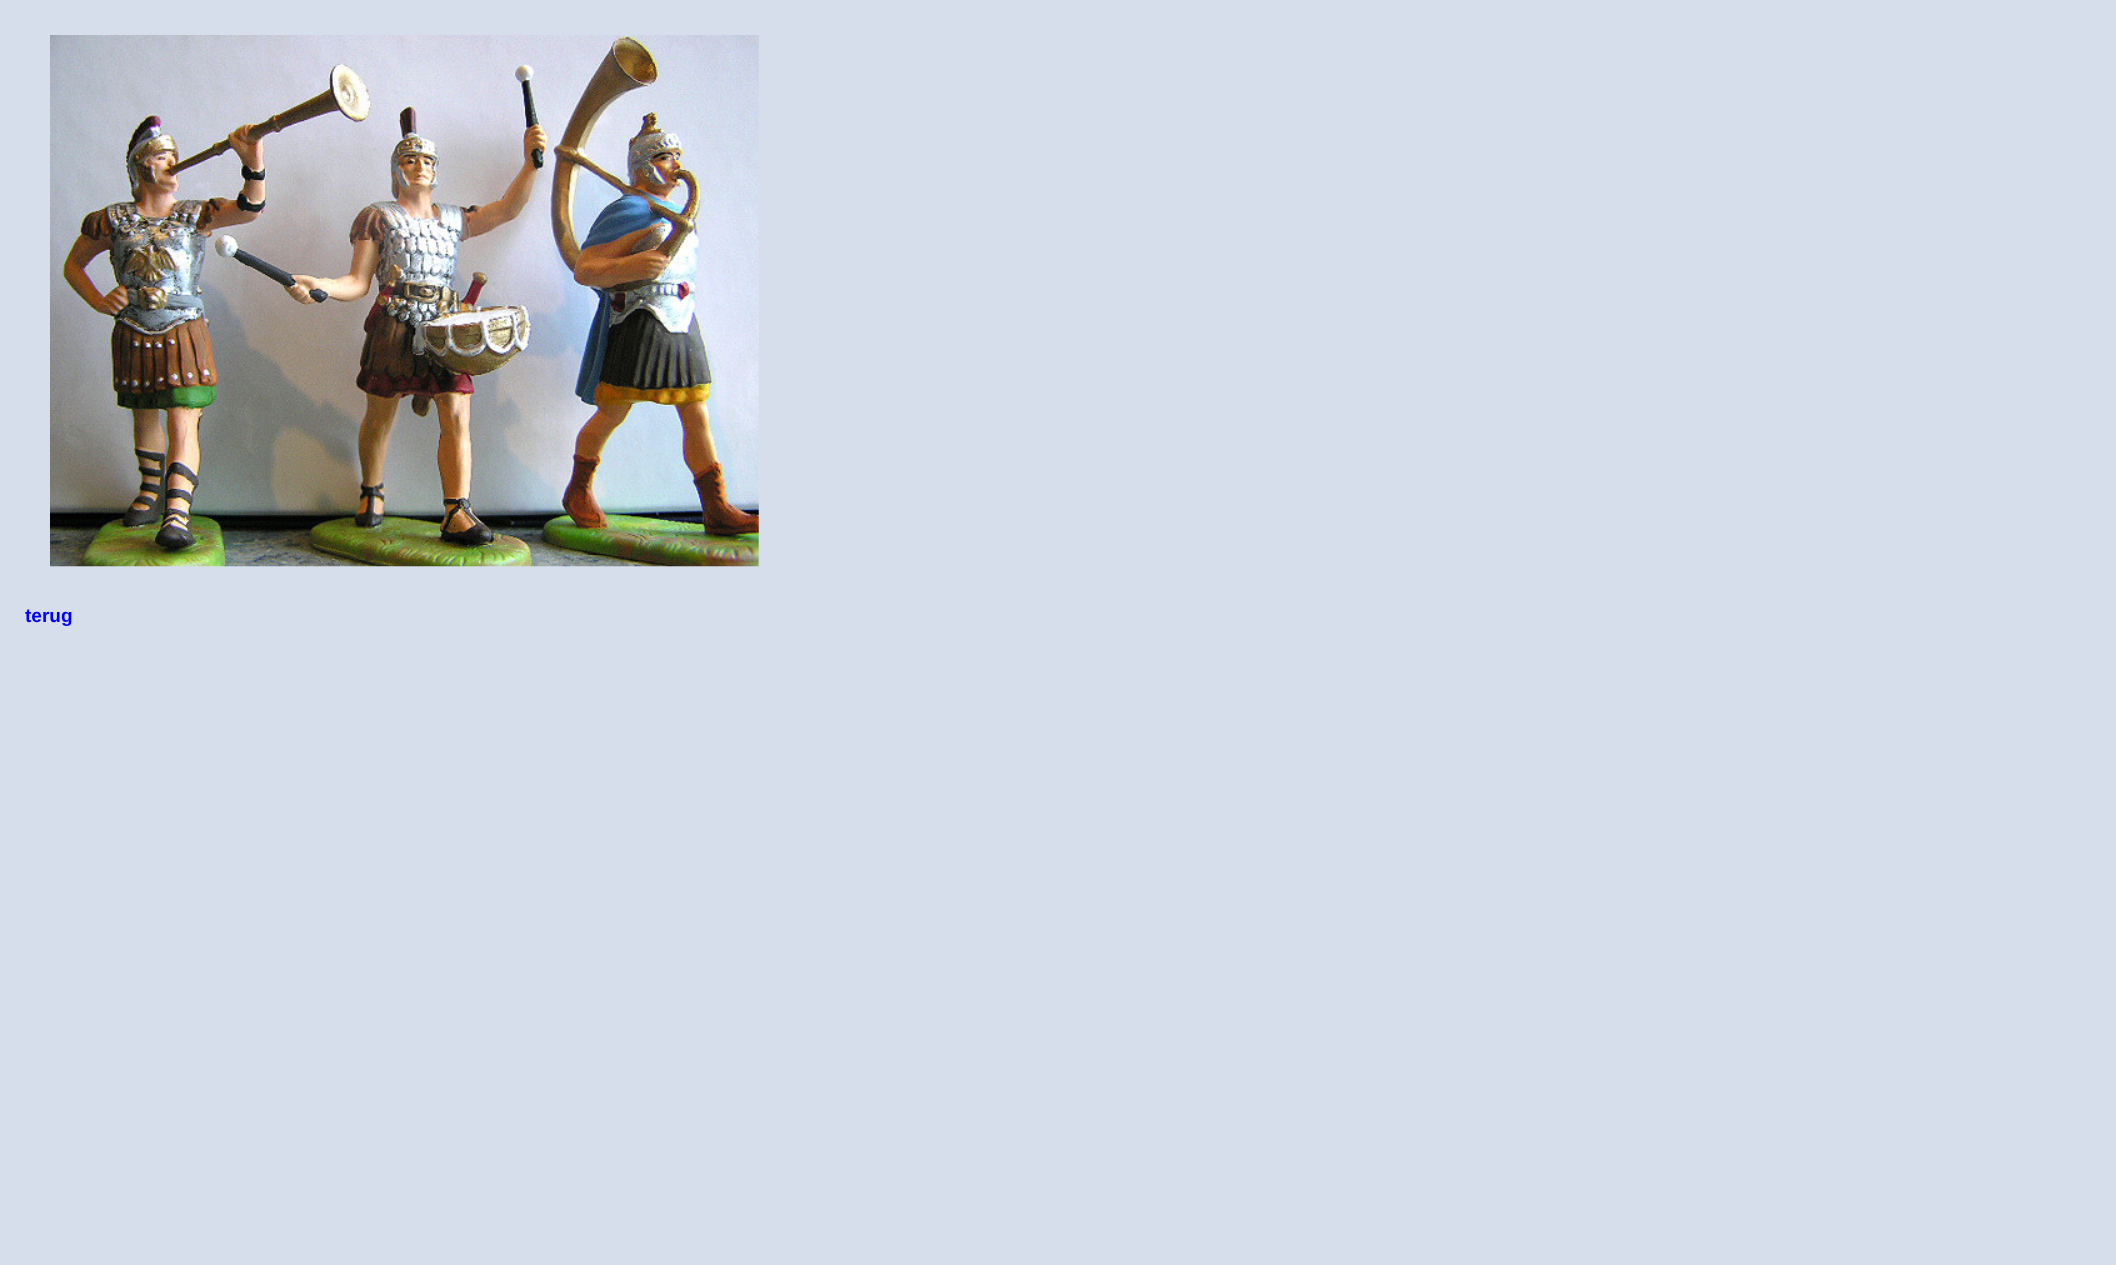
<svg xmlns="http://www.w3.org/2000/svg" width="2116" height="1265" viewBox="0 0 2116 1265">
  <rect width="100%" height="100%" fill="#d6deeb"/>
  <image x="50" y="35" width="709" height="532" href="img1.png"/>
  <text x="25" y="622" font-family="Liberation Sans" font-size="19" font-weight="bold" fill="#0000ff">terug</text>
</svg>
